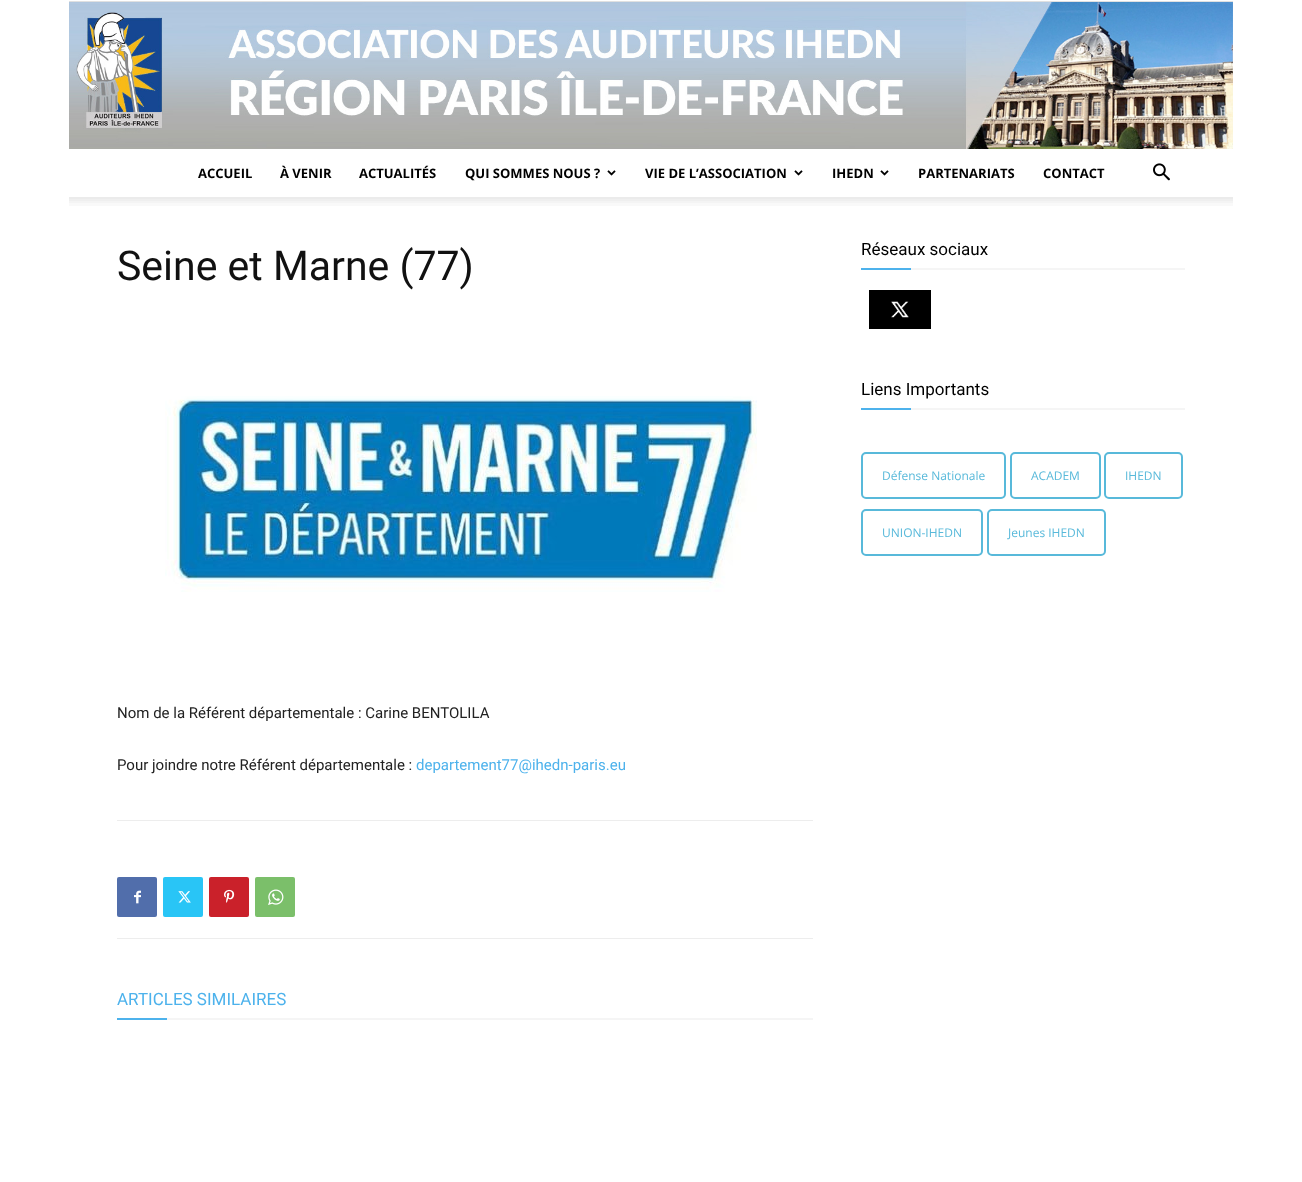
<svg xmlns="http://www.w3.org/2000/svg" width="1302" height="1182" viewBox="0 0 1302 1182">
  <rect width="100%" height="100%" fill="#ffffff"/>
  <rect x="69" y="1" width="1164" height="1" fill="#e0e0e0"/>
  <image x="69" y="2" width="1164" height="147" href="img1.png"/>
  <text x="198" y="178" font-family="Open Sans" font-size="13" font-weight="bold" fill="#000000">ACCUEIL</text>
  <text x="280" y="178" font-family="Open Sans" font-size="13" font-weight="bold" fill="#000000">À VENIR</text>
  <text x="359" y="178" font-family="Open Sans" font-size="13" font-weight="bold" fill="#000000">ACTUALITÉS</text>
  <text x="465" y="178" font-family="Open Sans" font-size="13" font-weight="bold" fill="#000000">QUI SOMMES NOUS ?</text>
  <image x="607" y="170" width="9" height="6" href="img2.png"/>
  <text x="645" y="178" font-family="Open Sans" font-size="13" font-weight="bold" fill="#000000">VIE DE L’ASSOCIATION</text>
  <image x="794" y="170" width="9" height="6" href="img2.png"/>
  <text x="832" y="178" font-family="Open Sans" font-size="13" font-weight="bold" fill="#000000">IHEDN</text>
  <image x="880" y="170" width="9" height="6" href="img2.png"/>
  <text x="918" y="178" font-family="Open Sans" font-size="13" font-weight="bold" fill="#000000">PARTENARIATS</text>
  <text x="1043" y="178" font-family="Open Sans" font-size="13" font-weight="bold" fill="#000000">CONTACT</text>
  <image x="1153" y="163" width="17" height="18" href="img3.png"/>
  <image x="69" y="197" width="1164" height="9" href="img4.png"/>
  <text x="117" y="280" font-family="Roboto" font-size="41" fill="#111111">Seine et Marne (77)</text>
  <image x="165" y="396" width="592" height="196" href="img5.png"/>
  <text x="117" y="718" font-family="Roboto" font-size="15" fill="#222222">Nom de la Référent départementale : Carine BENTOLILA</text>
  <text x="117" y="770" font-family="Roboto" font-size="15" fill="#222222">Pour joindre notre Référent départementale :</text>
  <text x="416" y="770" font-family="Roboto" font-size="15" fill="#4db2ec">departement77@ihedn-paris.eu</text>
  <rect x="117" y="820" width="696" height="1" fill="#ededed"/>
  <rect x="117" y="938" width="696" height="1" fill="#ededed"/>
  <rect x="117" y="877" width="40" height="40" rx="2" fill="#516eab"/>
  <image x="134" y="890" width="7" height="14" href="img6.png"/>
  <rect x="163" y="877" width="40" height="40" rx="2" fill="#29c5f6"/>
  <image x="178" y="891" width="13" height="12" href="img7.png"/>
  <rect x="209" y="877" width="40" height="40" rx="2" fill="#ca212a"/>
  <image x="224" y="889" width="11" height="14" href="img8.png"/>
  <rect x="255" y="877" width="40" height="40" rx="2" fill="#7bbf6a"/>
  <image x="268" y="889" width="16" height="16" href="img9.png"/>
  <text x="117" y="1005" font-family="Roboto" font-size="17" fill="#4db2ec">ARTICLES SIMILAIRES</text>
  <rect x="117" y="1018" width="50" height="2" fill="#4db2ec"/>
  <rect x="167" y="1018" width="646" height="2" fill="#f5f5f5"/>
  <text x="861" y="255" font-family="Roboto" font-size="17" fill="#000000">Réseaux sociaux</text>
  <rect x="861" y="268" width="50" height="2" fill="#4db2ec"/>
  <rect x="911" y="268" width="274" height="2" fill="#f5f5f5"/>
  <image x="869" y="290" width="62" height="39" href="img10.png"/>
  <text x="861" y="395" font-family="Roboto" font-size="17" fill="#000000">Liens Importants</text>
  <rect x="861" y="408" width="50" height="2" fill="#4db2ec"/>
  <rect x="911" y="408" width="274" height="2" fill="#f5f5f5"/>
  <rect x="862" y="453" width="143" height="45" rx="4" fill="none" stroke="#58b9da" stroke-width="2"/>
  <text x="882" y="480" font-family="Open Sans" font-size="12" fill="#58b9da">Défense Nationale</text>
  <rect x="1011" y="453" width="89" height="45" rx="4" fill="none" stroke="#58b9da" stroke-width="2"/>
  <text x="1031" y="480" font-family="Open Sans" font-size="12" fill="#58b9da">ACADEM</text>
  <rect x="1105" y="453" width="77" height="45" rx="4" fill="none" stroke="#58b9da" stroke-width="2"/>
  <text x="1125" y="480" font-family="Open Sans" font-size="12" fill="#58b9da">IHEDN</text>
  <rect x="862" y="510" width="120" height="45" rx="4" fill="none" stroke="#58b9da" stroke-width="2"/>
  <text x="882" y="537" font-family="Open Sans" font-size="12" fill="#58b9da">UNION-IHEDN</text>
  <rect x="988" y="510" width="117" height="45" rx="4" fill="none" stroke="#58b9da" stroke-width="2"/>
  <text x="1008" y="537" font-family="Open Sans" font-size="12" fill="#58b9da">Jeunes IHEDN</text>
</svg>
